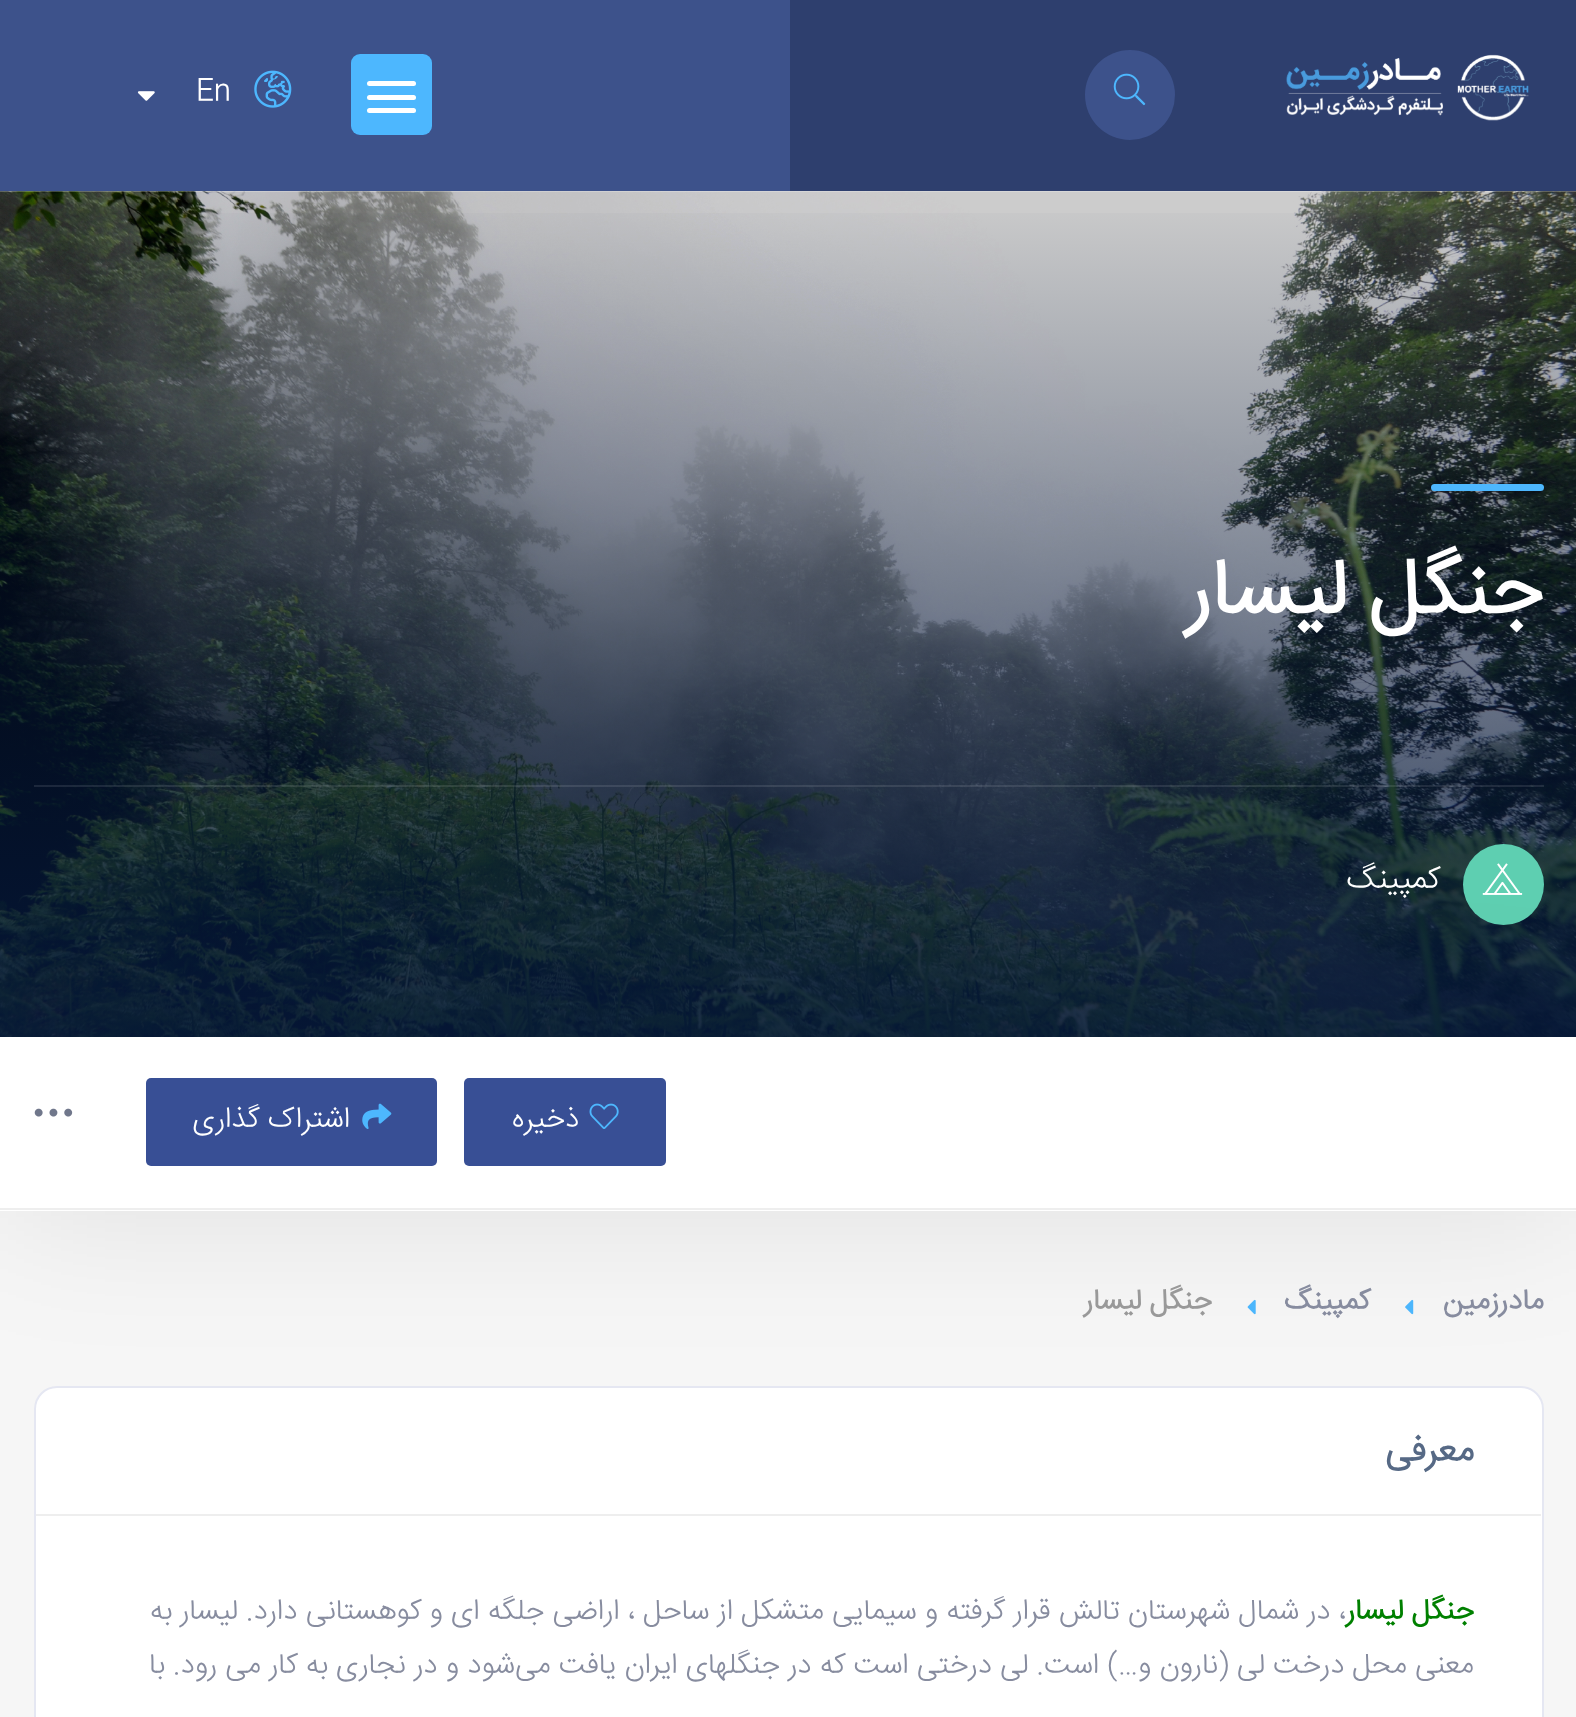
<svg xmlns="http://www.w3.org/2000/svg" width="1576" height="1717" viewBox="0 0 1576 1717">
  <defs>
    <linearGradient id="g1" gradientUnits="userSpaceOnUse" x1="789" y1="191" x2="789" y2="1150"><stop offset="0" stop-color="#061b41" stop-opacity="0"/><stop offset="1" stop-color="#061b41" stop-opacity="0.95"/></linearGradient>
    <filter id="blur1" x="-50%" y="-200%" width="200%" height="500%"><feGaussianBlur stdDeviation="73"/></filter>
  </defs>
  <rect width="100%" height="100%" fill="#2e3f6e"/>
  <circle cx="1130" cy="95" r="45" fill="#3d528b"/>
  <image x="1113" y="73" width="33" height="33" href="img1.png"/>
  <rect x="0" y="0" width="790" height="191" fill="#3d528b"/>
  <image x="1286" y="54" width="243" height="67" href="img2.png"/>
  <rect x="351" y="54" width="81" height="81" rx="9" fill="#4db7fe"/>
  <rect x="367" y="81" width="49" height="5" rx="2.5" fill="#ffffff"/>
  <rect x="367" y="95" width="49" height="5" rx="2.5" fill="#ffffff"/>
  <rect x="367" y="108" width="49" height="5" rx="2.5" fill="#ffffff"/>
  <image x="254" y="70" width="38" height="38" href="img3.png"/>
  <text x="196" y="99" font-family="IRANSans" font-size="29.05" font-weight="300" fill="#ffffff">En</text>
  <image x="137" y="91" width="18" height="10" href="img4.png"/>
  <rect x="0" y="191" width="1576" height="1526" fill="#f6f6f6"/>
  <image x="0" y="191" width="1576" height="846" href="img5.png"/>
  <rect x="0" y="213" width="1576" height="824" fill="url(#g1)"/>
  <rect x="1431" y="484" width="113" height="7" rx="3.5" fill="#4db7fe"/>
  <text x="1543" y="614" font-family="IRANSans" font-size="81" font-weight="bold" direction="rtl" fill="#ffffff">جنگل لیسار</text>
  <rect x="34" y="785" width="1510" height="2" fill="#ffffff" fill-opacity="0.1"/>
  <circle cx="1503.5" cy="884.5" r="40.5" fill="#5ecfb1"/>
  <image x="1482" y="863" width="41" height="32" href="img6.png"/>
  <text x="1440" y="888" font-family="IRANSans" font-size="31.5" font-weight="300" direction="rtl" fill="#ffffff">کمپینگ</text>
  <image x="1405" y="1299" width="9" height="16" href="img10.png"/>
  <image x="1247" y="1299" width="9" height="16" href="img11.png"/>
  <rect x="35" y="1387" width="1508" height="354" rx="22" fill="#ffffff" stroke="#e5e7f2" stroke-width="2"/>
  <rect x="0" y="1037" width="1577" height="174" fill="#000000" fill-opacity="0.09" filter="url(#blur1)"/>
  <rect x="0" y="1037" width="1576" height="174" fill="#ffffff"/>
  <rect x="0" y="1208" width="1576" height="2" fill="#eeeeee"/>
  <rect x="464" y="1078" width="202" height="88" rx="5" fill="#384f95"/>
  <image x="589" y="1103" width="30" height="26" href="img7.png"/>
  <text x="579" y="1127" font-family="IRANSans" font-size="29.05" font-weight="300" direction="rtl" fill="#ffffff">ذخیره</text>
  <rect x="146" y="1078" width="291" height="88" rx="5" fill="#384f95"/>
  <image x="362" y="1103" width="30" height="26" href="img8.png"/>
  <text x="350" y="1127" font-family="IRANSans" font-size="29.05" font-weight="300" direction="rtl" fill="#ffffff">اشتراک گذاری</text>
  <image x="34" y="1108" width="39" height="9" href="img9.png"/>
  <text x="1544" y="1309" font-family="IRANSans" font-size="29.05" font-weight="bold" direction="rtl" fill="#878c9f">مادرزمین</text>
  <text x="1370" y="1309" font-family="IRANSans" font-size="29.05" font-weight="bold" direction="rtl" fill="#878c9f">کمپینگ</text>
  <text x="1212" y="1309" font-family="IRANSans" font-size="29.05" font-weight="bold" direction="rtl" fill="#999999">جنگل لیسار</text>
  <rect x="36" y="1514" width="1505" height="2" fill="#eeeeee"/>
  <text x="1474" y="1461" font-family="IRANSans" font-size="36" font-weight="bold" direction="rtl" fill="#566985">معرفی</text>
  <text x="1474" y="1619" font-family="IRANSans" font-size="29.05" font-weight="bold" direction="rtl" fill="#008000">جنگل لیسار</text>
  <text x="1346" y="1619" font-family="IRANSans" font-size="29.05" font-weight="300" direction="rtl" fill="#878c9f">، در شمال شهرستان تالش قرار گرفته و سیمایی متشکل از ساحل ، اراضی جلگه ای و کوهستانی دارد. لیسار به</text>
  <text x="1474" y="1673" font-family="IRANSans" font-size="29.05" font-weight="300" direction="rtl" fill="#878c9f">معنی محل درخت لی (نارون و…) است. لی درختی است که در جنگلهای ایران یافت می‌شود و در نجاری به کار می رود. با</text>
</svg>
